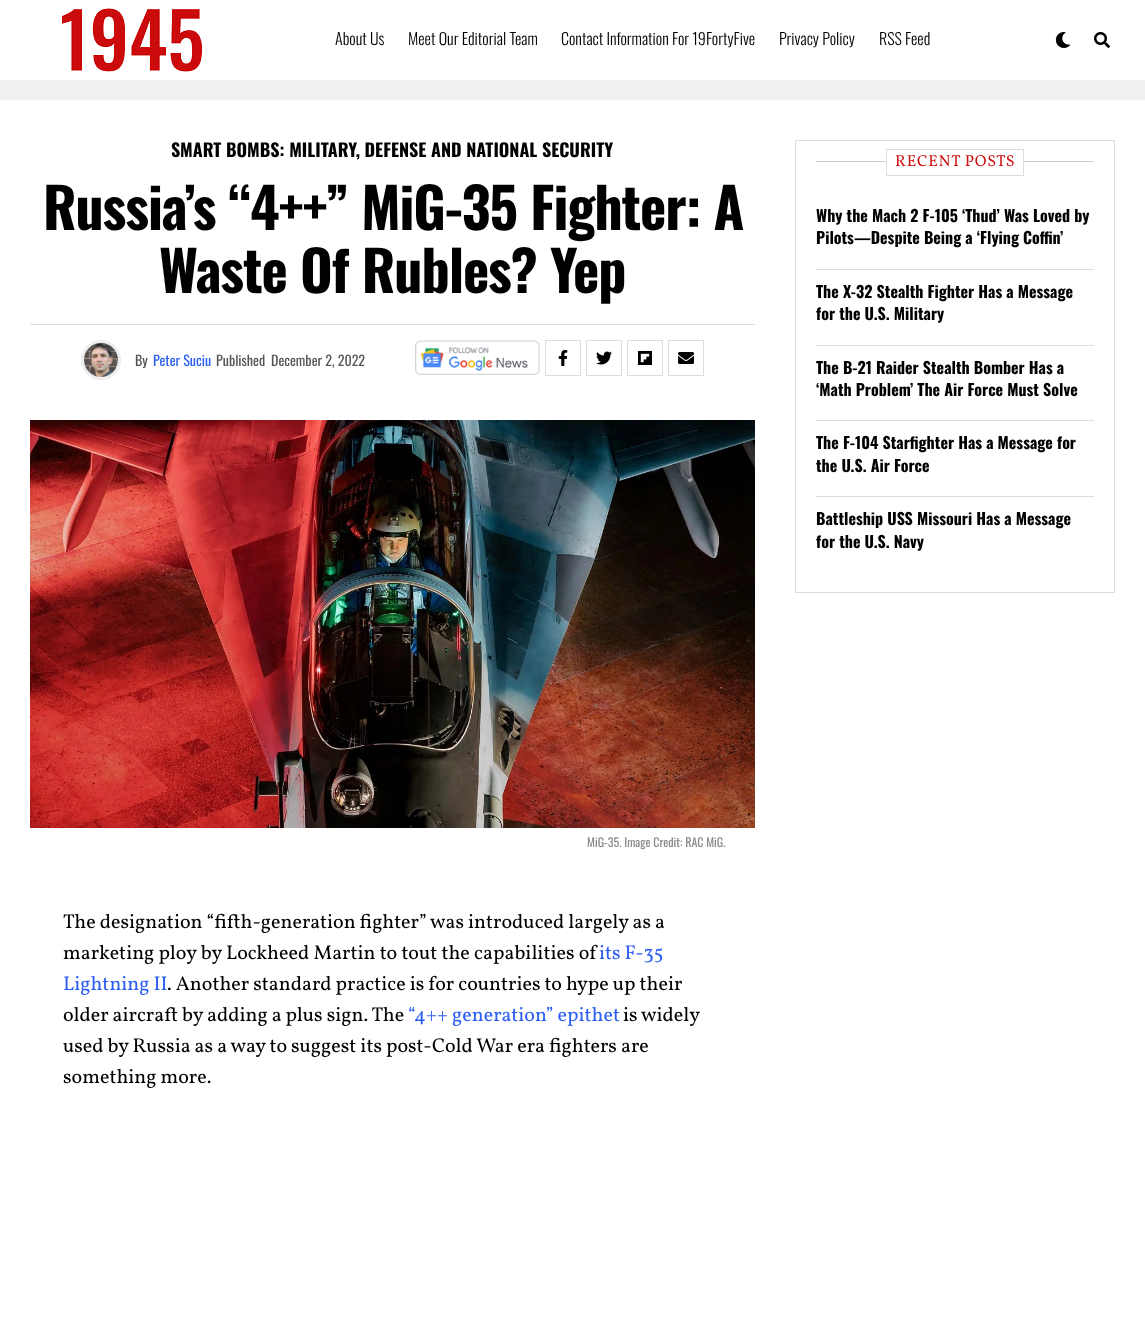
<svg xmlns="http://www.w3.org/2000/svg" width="1145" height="1321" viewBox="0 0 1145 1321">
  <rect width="100%" height="100%" fill="#f0f0f0"/>
  <rect x="0" y="0" width="1145" height="80" fill="#ffffff"/>
  <image x="62" y="8" width="140" height="64" href="img1.png"/>
  <text x="335" y="45" font-family="Oswald" font-size="16" font-weight="300" fill="#000000">About Us</text>
  <text x="408" y="45" font-family="Oswald" font-size="16" font-weight="300" fill="#000000">Meet Our Editorial Team</text>
  <text x="561" y="45" font-family="Oswald" font-size="16" font-weight="300" fill="#000000">Contact Information For 19FortyFive</text>
  <text x="779" y="45" font-family="Oswald" font-size="16" font-weight="300" fill="#000000">Privacy Policy</text>
  <text x="879" y="45" font-family="Oswald" font-size="16" font-weight="300" fill="#000000">RSS Feed</text>
  <image x="1055" y="32" width="16" height="16" href="img2.png"/>
  <image x="1094" y="32" width="16" height="16" href="img3.png"/>
  <rect x="0" y="100" width="1145" height="1221" fill="#ffffff"/>
  <text x="171" y="157" font-family="Oswald" font-size="18" font-weight="bold" fill="#000000">SMART BOMBS: MILITARY, DEFENSE AND NATIONAL SECURITY</text>
  <text x="43" y="230" font-family="Oswald" font-size="56" font-weight="bold" letter-spacing="-1.1" fill="#000000">Russia’s “4++” MiG-35 Fighter: A</text>
  <text x="159" y="293" font-family="Oswald" font-size="56" font-weight="bold" letter-spacing="-1.1" fill="#000000">Waste Of Rubles? Yep</text>
  <rect x="30" y="324" width="725" height="1" fill="#dddddd"/>
  <circle cx="101" cy="360" r="18.5" fill="none" stroke="#eeeeee" stroke-width="3"/>
  <image x="84" y="343" width="34" height="34" href="img4.png"/>
  <text x="135" y="366" font-family="Oswald" font-size="14" fill="#555555">By</text>
  <text x="153" y="366" font-family="Oswald" font-size="14" fill="#2c5ef4">Peter Suciu</text>
  <text x="216" y="366" font-family="Oswald" font-size="14" fill="#555555">Published</text>
  <text x="271" y="366" font-family="Oswald" font-size="14" fill="#555555">December 2, 2022</text>
  <image x="415" y="340" width="125" height="35" href="img5.png"/>
  <rect x="545.5" y="340.5" width="35" height="35" fill="none" stroke="#dddddd"/>
  <image x="558" y="350" width="10" height="16" href="img6.png"/>
  <rect x="586.5" y="340.5" width="35" height="35" fill="none" stroke="#dddddd"/>
  <image x="596" y="351" width="16" height="14" href="img7.png"/>
  <rect x="627.5" y="340.5" width="35" height="35" fill="none" stroke="#dddddd"/>
  <image x="638" y="351" width="14" height="14" href="img8.png"/>
  <rect x="668.5" y="340.5" width="35" height="35" fill="none" stroke="#dddddd"/>
  <image x="678" y="352" width="16" height="12" href="img9.png"/>
  <image x="30" y="420" width="725" height="408" href="img10.png"/>
  <text x="587" y="847" font-family="Oswald" font-size="12" fill="#888888">MiG-35. Image Credit: RAC MiG.</text>
  <text x="63" y="928" font-family="Vollkorn" font-size="20" fill="#000000">The designation “fifth-generation fighter” was introduced largely as a</text>
  <text x="63" y="959" word-spacing="0.25" font-family="Vollkorn" font-size="20" fill="#000000">marketing ploy by Lockheed Martin to tout the capabilities of</text>
  <text x="599" y="959" font-family="Vollkorn" font-size="20" fill="#2c5ef4">its F-35</text>
  <text x="63" y="990" font-family="Vollkorn" font-size="20" fill="#2c5ef4">Lightning II</text>
  <text x="167" y="990" font-family="Vollkorn" font-size="20" fill="#000000">. Another standard practice is for countries to hype up their</text>
  <text x="63" y="1021" font-family="Vollkorn" font-size="20" fill="#000000">older aircraft by adding a plus sign. The</text>
  <text x="408" y="1021" font-family="Vollkorn" font-size="20" fill="#2c5ef4">“4++ generation” epithet</text>
  <text x="623" y="1021" font-family="Vollkorn" font-size="20" fill="#000000">is widely</text>
  <text x="63" y="1052" font-family="Vollkorn" font-size="20" fill="#000000">used by Russia as a way to suggest its post-Cold War era fighters are</text>
  <text x="63" y="1083" font-family="Vollkorn" font-size="20" fill="#000000">something more.</text>
  <rect x="795.5" y="140.5" width="319" height="452" fill="none" stroke="#dddddd"/>
  <rect x="816" y="161" width="278" height="1" fill="#cccccc"/>
  <rect x="887" y="161" width="136" height="1" fill="#ffffff"/>
  <rect x="886.5" y="149.5" width="137" height="26" fill="none" stroke="#dddddd"/>
  <text x="895" y="166" font-family="Vollkorn" font-size="16" letter-spacing="0.75" fill="#cc0e0e">RECENT POSTS</text>
  <text x="816" y="222" font-family="Oswald" font-size="16" font-weight="bold" fill="#000000">Why the Mach 2 F-105 ‘Thud’ Was Loved by</text>
  <text x="816" y="244" font-family="Oswald" font-size="16" font-weight="bold" fill="#000000">Pilots—Despite Being a ‘Flying Coffin’</text>
  <rect x="816" y="269" width="278" height="1" fill="#dddddd"/>
  <text x="816" y="298" font-family="Oswald" font-size="16" font-weight="bold" fill="#000000">The X-32 Stealth Fighter Has a Message</text>
  <text x="816" y="320" font-family="Oswald" font-size="16" font-weight="bold" fill="#000000">for the U.S. Military</text>
  <rect x="816" y="345" width="278" height="1" fill="#dddddd"/>
  <text x="816" y="374" font-family="Oswald" font-size="16" font-weight="bold" fill="#000000">The B-21 Raider Stealth Bomber Has a</text>
  <text x="816" y="396" font-family="Oswald" font-size="16" font-weight="bold" fill="#000000">‘Math Problem’ The Air Force Must Solve</text>
  <rect x="816" y="420" width="278" height="1" fill="#dddddd"/>
  <text x="816" y="449" font-family="Oswald" font-size="16" font-weight="bold" fill="#000000">The F-104 Starfighter Has a Message for</text>
  <text x="816" y="472" font-family="Oswald" font-size="16" font-weight="bold" fill="#000000">the U.S. Air Force</text>
  <rect x="816" y="496" width="278" height="1" fill="#dddddd"/>
  <text x="816" y="525" font-family="Oswald" font-size="16" font-weight="bold" fill="#000000">Battleship USS Missouri Has a Message</text>
  <text x="816" y="548" font-family="Oswald" font-size="16" font-weight="bold" fill="#000000">for the U.S. Navy</text>
</svg>
